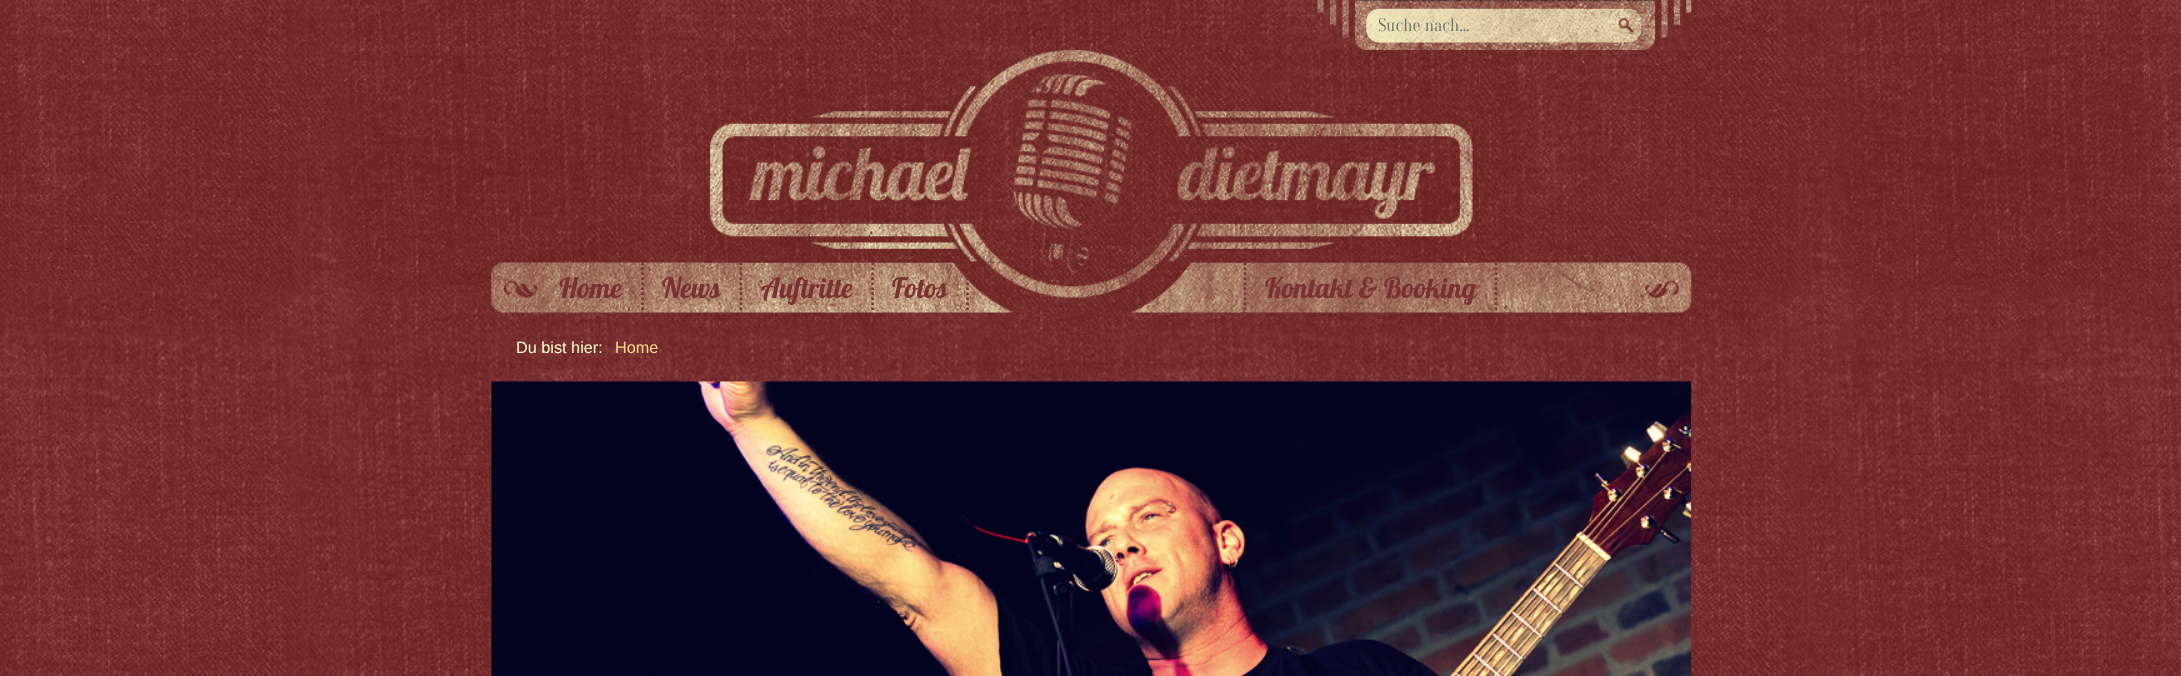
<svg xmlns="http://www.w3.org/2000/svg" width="2181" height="676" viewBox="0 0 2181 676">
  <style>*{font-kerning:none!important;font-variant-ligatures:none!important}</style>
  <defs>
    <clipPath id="clip1"><rect x="1379" y="15" width="225" height="21"/></clipPath>
  </defs>
  <rect width="100%" height="100%" fill="#ffffff"/>
  <image x="0" y="0" width="2181" height="676" href="img1.png"/>
  <image x="1316" y="0" width="376" height="50" href="img2.png"/>
  <image x="1366" y="8" width="276" height="35" href="img3.png"/>
  <g clip-path="url(#clip1)">
    <text x="1378" y="31" font-family="Oranienbaum" font-size="18" fill="#757575">Suche nach...</text>
  </g>
  <image x="491" y="262" width="1201" height="51" href="img5.png"/>
  <image x="703" y="50" width="776" height="213" href="img4.png"/>
  <path d="M642.5 262.5V312.5" fill="none" stroke="#7b3131" stroke-width="2.5" stroke-dasharray="2.5 2.5"/>
  <text x="559" y="298" font-family="Lobster" font-size="28" fill="#7b3131">Home</text>
  <path d="M741 262.5V312.5" fill="none" stroke="#7b3131" stroke-width="2.5" stroke-dasharray="2.5 2.5"/>
  <text x="662" y="298" font-family="Lobster" font-size="28" fill="#7b3131">News</text>
  <path d="M872.5 262.5V312.5" fill="none" stroke="#7b3131" stroke-width="2.5" stroke-dasharray="2.5 2.5"/>
  <text x="761" y="298" font-family="Lobster" font-size="28" fill="#7b3131">Auftritte</text>
  <path d="M967.5 262.5V312.5" fill="none" stroke="#7b3131" stroke-width="2.5" stroke-dasharray="2.5 2.5"/>
  <text x="892" y="298" font-family="Lobster" font-size="28" fill="#7b3131">Fotos</text>
  <path d="M1496 262.5V312.5" fill="none" stroke="#7b3131" stroke-width="2.5" stroke-dasharray="2.5 2.5"/>
  <path d="M1245 262.5V312.5" fill="none" stroke="#7b3131" stroke-width="2.5" stroke-dasharray="2.5 2.5"/>
  <text x="1265" y="298" font-family="Lobster" font-size="28" fill="#7b3131">Kontakt &amp; Booking</text>
  <text x="516" y="353" font-family="Liberation Sans" font-size="16.25" fill="#ffffcc">Du bist hier:</text>
  <text x="615" y="353" font-family="Liberation Sans" font-size="16.25" fill="#ffdd88">Home</text>
  <image x="491" y="381" width="1201" height="295" href="img6.png"/>
</svg>
